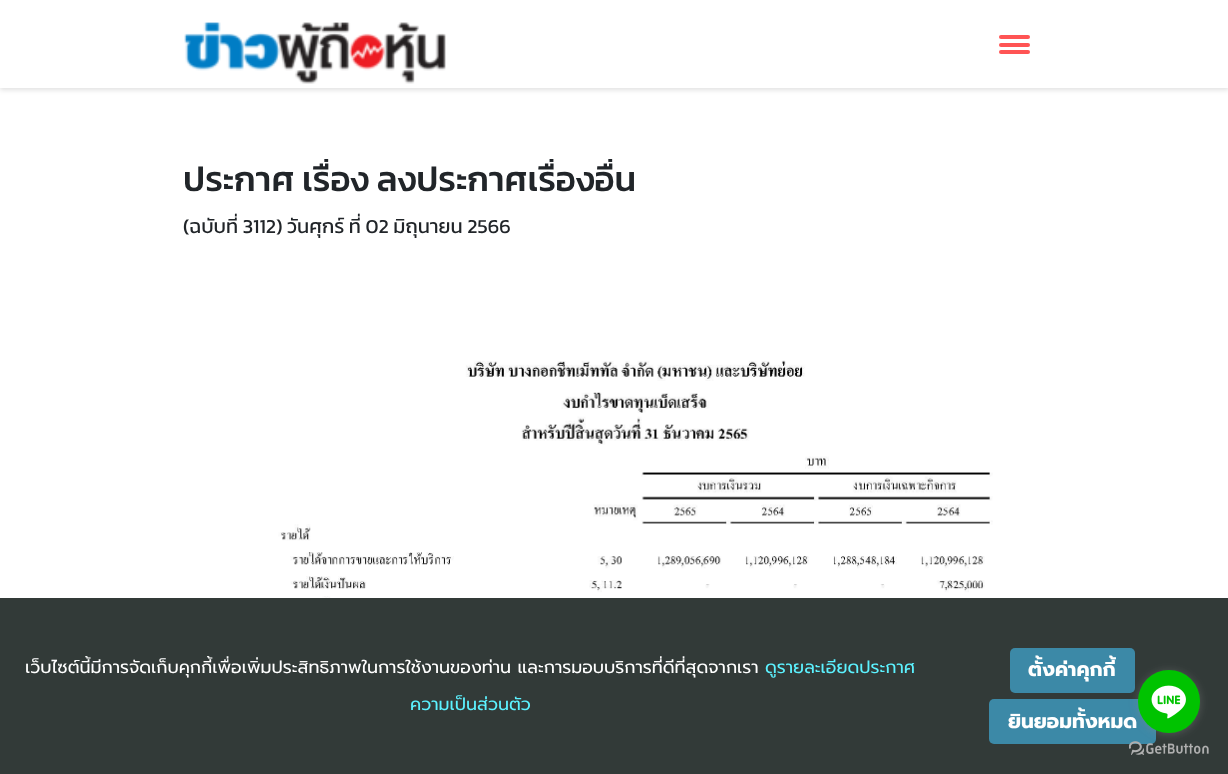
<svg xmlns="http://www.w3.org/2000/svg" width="1228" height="774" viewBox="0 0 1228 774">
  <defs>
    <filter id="blur1" x="-50%" y="-200%" width="200%" height="500%"><feGaussianBlur stdDeviation="2.5"/></filter>
    <clipPath id="clip1"><rect x="184" y="159" width="862" height="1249"/></clipPath>
    <filter id="blur2" x="-50%" y="-200%" width="200%" height="500%"><feGaussianBlur stdDeviation="4.5"/></filter>
  </defs>
  <rect width="100%" height="100%" fill="#ffffff"/>
  <rect x="0" y="3" width="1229" height="87" fill="#000000" fill-opacity="0.12" filter="url(#blur1)"/>
  <rect x="0" y="0" width="1228" height="88" fill="#ffffff"/>
  <image x="184" y="22" width="262" height="62" href="img1.png"/>
  <rect x="999" y="35" width="31" height="4" rx="2" fill="#ff5454"/>
  <rect x="999" y="43" width="31" height="4" rx="2" fill="#ff5454"/>
  <rect x="999" y="50" width="31" height="4" rx="2" fill="#ff5454"/>
  <g clip-path="url(#clip1)">
    <text x="183" y="191" font-family="Kanit" font-size="35" font-weight="500" fill="#212529">ประกาศ เรื่อง ลงประกาศเรื่องอื่น</text>
  </g>
  <text x="183" y="233" font-family="Kanit" font-size="20" fill="#212529">(ฉบับที่ 3112) วันศุกร์ ที่ 02 มิถุนายน 2566</text>
  <image x="278" y="360" width="715" height="238" href="img2.png"/>
  <rect x="0" y="598" width="1228" height="176" fill="#323a38"/>
  <text x="25" y="673" font-family="Prompt" font-size="17.5" fill="#ffffff">เว็บไซต์นี้มีการจัดเก็บคุกกี้เพื่อเพิ่มประสิทธิภาพในการใช้งานของท่าน และการมอบบริการที่ดีที่สุดจากเรา</text>
  <text x="765" y="673" font-family="Prompt" font-size="17.5" fill="#5cf2ff">ดูรายละเอียดประกาศ</text>
  <text x="410" y="710" font-family="Prompt" font-size="17.5" fill="#5cf2ff">ความเป็นส่วนตัว</text>
  <rect x="1010" y="648" width="125" height="45" rx="5" fill="#3c89a7"/>
  <text x="1028" y="676" font-family="Prompt" font-size="20" font-weight="bold" fill="#ffffff">ตั้งค่าคุกกี้</text>
  <rect x="989" y="699" width="167" height="45" rx="5" fill="#3c89a7"/>
  <text x="1008" y="728" font-family="Prompt" font-size="20" font-weight="bold" fill="#ffffff">ยินยอมทั้งหมด</text>
  <image x="1129" y="741" width="80" height="14" href="img4.png"/>
  <rect x="1138" y="671" width="62" height="63" rx="31" fill="#888888" fill-opacity="0.4" filter="url(#blur2)"/>
  <rect x="1138" y="670" width="62" height="63" rx="31" fill="#00c300"/>
  <image x="1151" y="685" width="35" height="34" href="img3.png"/>
</svg>
